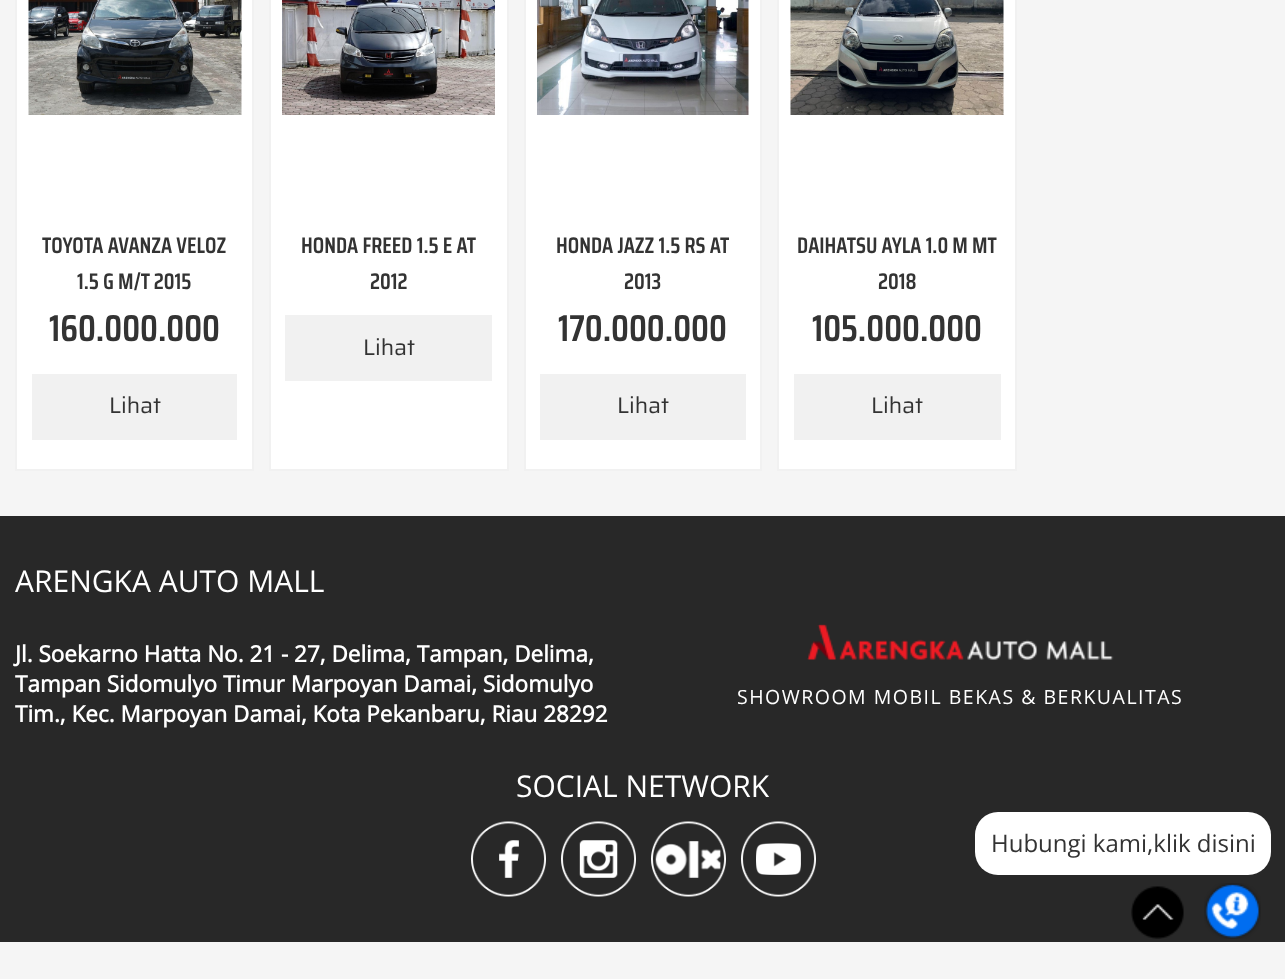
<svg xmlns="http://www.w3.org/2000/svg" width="1285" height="979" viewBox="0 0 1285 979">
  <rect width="100%" height="100%" fill="#f5f5f5"/>
  <rect x="16" y="-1" width="237" height="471" fill="#ffffff" stroke="#f1f1f1" stroke-width="2"/>
  <image x="28" y="0" width="214" height="115" href="img1.png"/>
  <text x="42" y="253" font-family="Saira Condensed" font-size="22.5" font-weight="600" fill="#333333">TOYOTA AVANZA VELOZ</text>
  <text x="77" y="289" font-family="Saira Condensed" font-size="22.5" font-weight="600" fill="#333333">1.5 G M/T 2015</text>
  <text x="49" y="341" font-family="Saira Condensed" font-size="37.5" font-weight="600" fill="#333333">160.000.000</text>
  <rect x="32" y="374" width="205" height="66" fill="#f1f1f1"/>
  <text x="109" y="413" font-family="Saira" font-size="22.5" fill="#333333">Lihat</text>
  <rect x="270" y="-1" width="238" height="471" fill="#ffffff" stroke="#f1f1f1" stroke-width="2"/>
  <image x="282" y="0" width="213" height="115" href="img2.png"/>
  <text x="301" y="253" font-family="Saira Condensed" font-size="22.5" font-weight="600" fill="#333333">HONDA FREED 1.5 E AT</text>
  <text x="370" y="289" font-family="Saira Condensed" font-size="22.5" font-weight="600" fill="#333333">2012</text>
  <rect x="285" y="315" width="207" height="66" fill="#f1f1f1"/>
  <text x="363" y="355" font-family="Saira" font-size="22.5" fill="#333333">Lihat</text>
  <rect x="525" y="-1" width="236" height="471" fill="#ffffff" stroke="#f1f1f1" stroke-width="2"/>
  <image x="537" y="0" width="212" height="115" href="img3.png"/>
  <text x="556" y="253" font-family="Saira Condensed" font-size="22.5" font-weight="600" fill="#333333">HONDA JAZZ 1.5 RS AT</text>
  <text x="624" y="289" font-family="Saira Condensed" font-size="22.5" font-weight="600" fill="#333333">2013</text>
  <text x="558" y="341" font-family="Saira Condensed" font-size="37.5" font-weight="600" fill="#333333">170.000.000</text>
  <rect x="540" y="374" width="206" height="66" fill="#f1f1f1"/>
  <text x="617" y="413" font-family="Saira" font-size="22.5" fill="#333333">Lihat</text>
  <rect x="778" y="-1" width="238" height="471" fill="#ffffff" stroke="#f1f1f1" stroke-width="2"/>
  <image x="790" y="0" width="214" height="115" href="img4.png"/>
  <text x="797" y="253" font-family="Saira Condensed" font-size="22.5" font-weight="600" fill="#333333">DAIHATSU AYLA 1.0 M MT</text>
  <text x="878" y="289" font-family="Saira Condensed" font-size="22.5" font-weight="600" fill="#333333">2018</text>
  <text x="812" y="341" font-family="Saira Condensed" font-size="37.5" font-weight="600" fill="#333333">105.000.000</text>
  <rect x="794" y="374" width="207" height="66" fill="#f1f1f1"/>
  <text x="871" y="413" font-family="Saira" font-size="22.5" fill="#333333">Lihat</text>
  <rect x="0" y="516" width="1285" height="426" fill="#282828"/>
  <text x="15" y="592" font-family="Open Sans" font-size="30" fill="#ffffff">ARENGKA AUTO MALL</text>
  <text x="15" y="662" font-family="Open Sans" font-size="22.5" font-weight="bold" fill="#ffffff">Jl. Soekarno Hatta No. 21 - 27, Delima, Tampan, Delima,</text>
  <text x="15" y="692" font-family="Open Sans" font-size="22.5" font-weight="bold" fill="#ffffff">Tampan Sidomulyo Timur Marpoyan Damai, Sidomulyo</text>
  <text x="15" y="722" font-family="Open Sans" font-size="22.5" font-weight="bold" fill="#ffffff">Tim., Kec. Marpoyan Damai, Kota Pekanbaru, Riau 28292</text>
  <image x="807" y="624" width="307" height="36" href="img5.png"/>
  <text x="737" y="704" font-family="Open Sans" font-size="19.5" letter-spacing="1.5" fill="#ffffff">SHOWROOM MOBIL BEKAS &amp; BERKUALITAS</text>
  <text x="516" y="797" font-family="Open Sans" font-size="30" fill="#ffffff">SOCIAL NETWORK</text>
  <image x="471" y="821" width="75" height="76" href="img6.png"/>
  <image x="561" y="821" width="75" height="76" href="img7.png"/>
  <image x="651" y="821" width="75" height="76" href="img8.png"/>
  <image x="741" y="821" width="75" height="76" href="img9.png"/>
  <rect x="975" y="812" width="296" height="63" rx="23" fill="#ffffff"/>
  <text x="991" y="852" font-family="Open Sans" font-size="24" fill="#333333">Hubungi kami,klik disini</text>
  <image x="1131" y="886" width="53" height="53" href="img10.png"/>
  <image x="1204" y="883" width="57" height="56" href="img11.png"/>
</svg>
